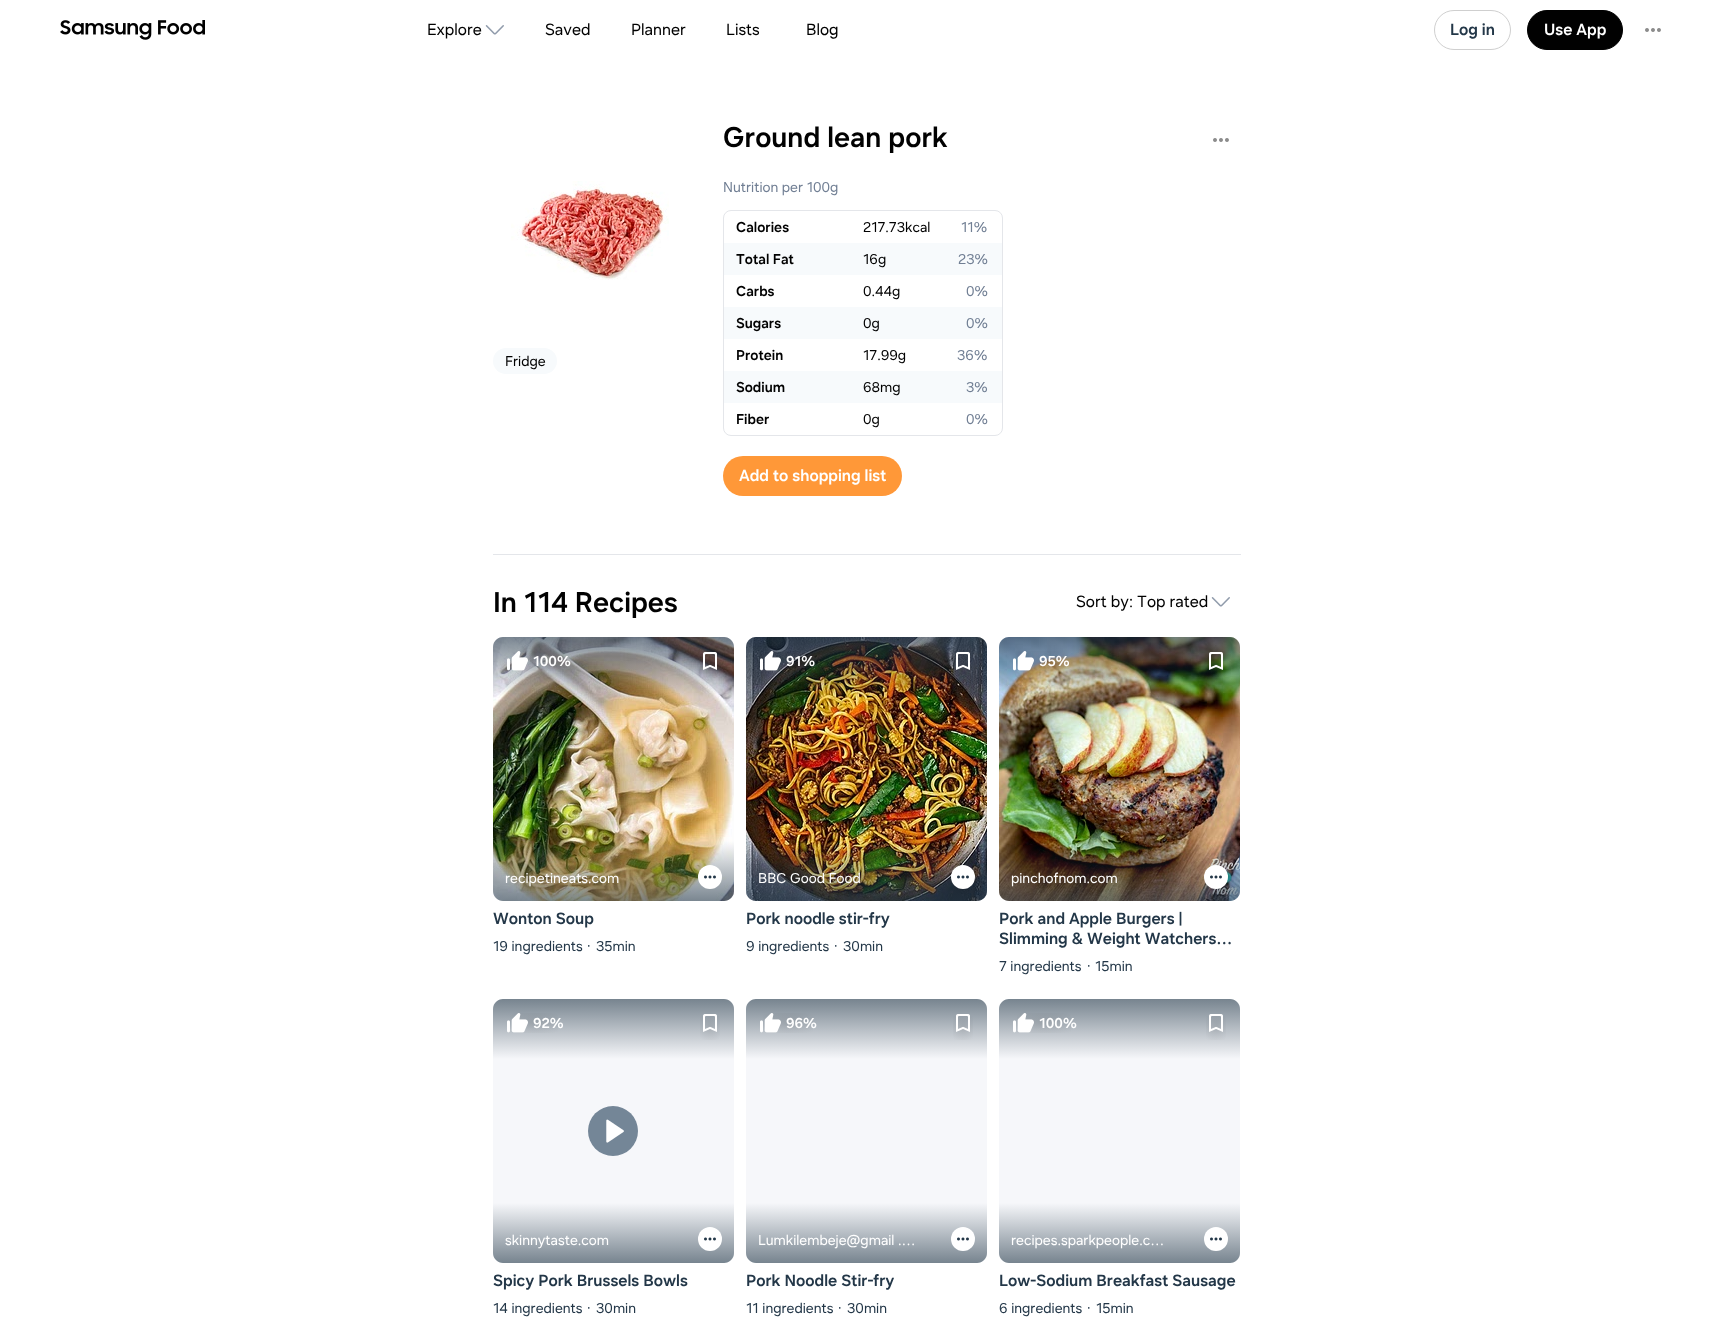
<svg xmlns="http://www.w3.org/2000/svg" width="1733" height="1336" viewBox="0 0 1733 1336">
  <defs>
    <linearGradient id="g1" gradientUnits="userSpaceOnUse" x1="613" y1="697" x2="613" y2="637"><stop offset="0" stop-color="#233748" stop-opacity="0"/><stop offset="1" stop-color="#233748" stop-opacity="0.6"/></linearGradient>
    <radialGradient id="g2" gradientUnits="userSpaceOnUse" cx="0" cy="0" r="1" gradientTransform="matrix(46 0 0 17 538 661)"><stop offset="0" stop-color="#000000" stop-opacity="0.08"/><stop offset="0.8" stop-color="#000000" stop-opacity="0"/></radialGradient>
    <radialGradient id="g3" gradientUnits="userSpaceOnUse" cx="0" cy="0" r="1" gradientTransform="matrix(17 0 0 22 710 665)"><stop offset="0" stop-color="#000000" stop-opacity="0.08"/><stop offset="0.8" stop-color="#000000" stop-opacity="0"/></radialGradient>
    <linearGradient id="g4" gradientUnits="userSpaceOnUse" x1="614" y1="841" x2="614" y2="901"><stop offset="0" stop-color="#233748" stop-opacity="0"/><stop offset="1" stop-color="#233748" stop-opacity="0.6"/></linearGradient>
    <linearGradient id="g5" gradientUnits="userSpaceOnUse" x1="866" y1="697" x2="866" y2="637"><stop offset="0" stop-color="#233748" stop-opacity="0"/><stop offset="1" stop-color="#233748" stop-opacity="0.6"/></linearGradient>
    <radialGradient id="g6" gradientUnits="userSpaceOnUse" cx="0" cy="0" r="1" gradientTransform="matrix(40 0 0 17 787 661)"><stop offset="0" stop-color="#000000" stop-opacity="0.08"/><stop offset="0.8" stop-color="#000000" stop-opacity="0"/></radialGradient>
    <radialGradient id="g7" gradientUnits="userSpaceOnUse" cx="0" cy="0" r="1" gradientTransform="matrix(17 0 0 22 963 665)"><stop offset="0" stop-color="#000000" stop-opacity="0.08"/><stop offset="0.8" stop-color="#000000" stop-opacity="0"/></radialGradient>
    <linearGradient id="g8" gradientUnits="userSpaceOnUse" x1="867" y1="841" x2="867" y2="901"><stop offset="0" stop-color="#233748" stop-opacity="0"/><stop offset="1" stop-color="#233748" stop-opacity="0.6"/></linearGradient>
    <linearGradient id="g9" gradientUnits="userSpaceOnUse" x1="1120" y1="697" x2="1120" y2="637"><stop offset="0" stop-color="#233748" stop-opacity="0"/><stop offset="1" stop-color="#233748" stop-opacity="0.6"/></linearGradient>
    <radialGradient id="g10" gradientUnits="userSpaceOnUse" cx="0" cy="0" r="1" gradientTransform="matrix(42 0 0 17 1041 661)"><stop offset="0" stop-color="#000000" stop-opacity="0.08"/><stop offset="0.8" stop-color="#000000" stop-opacity="0"/></radialGradient>
    <radialGradient id="g11" gradientUnits="userSpaceOnUse" cx="0" cy="0" r="1" gradientTransform="matrix(17 0 0 22 1216 665)"><stop offset="0" stop-color="#000000" stop-opacity="0.08"/><stop offset="0.8" stop-color="#000000" stop-opacity="0"/></radialGradient>
    <linearGradient id="g12" gradientUnits="userSpaceOnUse" x1="1120" y1="841" x2="1120" y2="901"><stop offset="0" stop-color="#233748" stop-opacity="0"/><stop offset="1" stop-color="#233748" stop-opacity="0.6"/></linearGradient>
    <linearGradient id="g13" gradientUnits="userSpaceOnUse" x1="613" y1="1059" x2="613" y2="999"><stop offset="0" stop-color="#f6f7fa"/><stop offset="1" stop-color="#77848f"/></linearGradient>
    <radialGradient id="g14" gradientUnits="userSpaceOnUse" cx="0" cy="0" r="1" gradientTransform="matrix(41 0 0 17 534 1023)"><stop offset="0" stop-color="#000000" stop-opacity="0.08"/><stop offset="0.8" stop-color="#000000" stop-opacity="0"/></radialGradient>
    <radialGradient id="g15" gradientUnits="userSpaceOnUse" cx="0" cy="0" r="1" gradientTransform="matrix(17 0 0 22 710 1027)"><stop offset="0" stop-color="#000000" stop-opacity="0.08"/><stop offset="0.8" stop-color="#000000" stop-opacity="0"/></radialGradient>
    <linearGradient id="g16" gradientUnits="userSpaceOnUse" x1="614" y1="1203" x2="614" y2="1263"><stop offset="0" stop-color="#f6f7fa"/><stop offset="1" stop-color="#77848f"/></linearGradient>
    <linearGradient id="g17" gradientUnits="userSpaceOnUse" x1="866" y1="1059" x2="866" y2="999"><stop offset="0" stop-color="#f6f7fa"/><stop offset="1" stop-color="#77848f"/></linearGradient>
    <radialGradient id="g18" gradientUnits="userSpaceOnUse" cx="0" cy="0" r="1" gradientTransform="matrix(42 0 0 17 788 1023)"><stop offset="0" stop-color="#000000" stop-opacity="0.08"/><stop offset="0.8" stop-color="#000000" stop-opacity="0"/></radialGradient>
    <radialGradient id="g19" gradientUnits="userSpaceOnUse" cx="0" cy="0" r="1" gradientTransform="matrix(17 0 0 22 963 1027)"><stop offset="0" stop-color="#000000" stop-opacity="0.08"/><stop offset="0.8" stop-color="#000000" stop-opacity="0"/></radialGradient>
    <linearGradient id="g20" gradientUnits="userSpaceOnUse" x1="867" y1="1203" x2="867" y2="1263"><stop offset="0" stop-color="#f6f7fa"/><stop offset="1" stop-color="#77848f"/></linearGradient>
    <linearGradient id="g21" gradientUnits="userSpaceOnUse" x1="1120" y1="1059" x2="1120" y2="999"><stop offset="0" stop-color="#f6f7fa"/><stop offset="1" stop-color="#77848f"/></linearGradient>
    <radialGradient id="g22" gradientUnits="userSpaceOnUse" cx="0" cy="0" r="1" gradientTransform="matrix(47 0 0 17 1044 1023)"><stop offset="0" stop-color="#000000" stop-opacity="0.08"/><stop offset="0.8" stop-color="#000000" stop-opacity="0"/></radialGradient>
    <radialGradient id="g23" gradientUnits="userSpaceOnUse" cx="0" cy="0" r="1" gradientTransform="matrix(17 0 0 22 1216 1027)"><stop offset="0" stop-color="#000000" stop-opacity="0.08"/><stop offset="0.8" stop-color="#000000" stop-opacity="0"/></radialGradient>
    <linearGradient id="g24" gradientUnits="userSpaceOnUse" x1="1120" y1="1203" x2="1120" y2="1263"><stop offset="0" stop-color="#f6f7fa"/><stop offset="1" stop-color="#77848f"/></linearGradient>
  </defs>
  <rect width="100%" height="100%" fill="#ffffff"/>
  <image x="60" y="20" width="145" height="20" href="img1.png"/>
  <text x="427" y="35" font-family="'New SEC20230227'" font-size="16" fill="#010101">Explore</text>
  <image x="485" y="25" width="19" height="10" href="img2.png"/>
  <text x="545" y="35" font-family="'New SEC20230227'" font-size="16" fill="#010101">Saved</text>
  <text x="631" y="35" font-family="'New SEC20230227'" font-size="16" fill="#010101">Planner</text>
  <text x="726" y="35" font-family="'New SEC20230227'" font-size="16" fill="#010101">Lists</text>
  <text x="806" y="35" font-family="'New SEC20230227'" font-size="16" fill="#010101">Blog</text>
  <rect x="1434.5" y="10.5" width="76" height="39" rx="19.5" fill="none" stroke="#cfcfcf"/>
  <text x="1450" y="35" font-family="'New SEC20230227'" font-size="16" font-weight="600" fill="#233748">Log in</text>
  <rect x="1527.5" y="10.5" width="95" height="39" rx="19.5" fill="#010101" stroke="#010101"/>
  <text x="1544" y="35" font-family="'New SEC20230227'" font-size="16" font-weight="600" fill="#ffffff">Use App</text>
  <image x="1645" y="28" width="16" height="4" href="img3.png"/>
  <rect x="493" y="554" width="748" height="1" fill="#e4e6ea"/>
  <image x="511" y="181" width="158" height="99" href="img4.png"/>
  <rect x="493" y="348" width="64" height="26" rx="13" fill="#f7fafc"/>
  <text x="505" y="366" font-family="'New SEC20230227'" font-size="14" fill="#010101">Fridge</text>
  <text x="723" y="147" font-family="'New SEC20230227'" font-size="28" font-weight="600" fill="#010101">Ground lean pork</text>
  <image x="1213" y="138" width="16" height="4" href="img3.png"/>
  <text x="723" y="192" font-family="'New SEC20230227'" font-size="14" fill="#717f94">Nutrition per 100g</text>
  <rect x="723.5" y="210.5" width="279" height="225" rx="7.5" fill="none" stroke="#e4e6ea"/>
  <text x="736" y="232" font-family="'New SEC20230227'" font-size="14" font-weight="600" fill="#010101">Calories</text>
  <text x="863" y="232" font-family="'New SEC20230227'" font-size="14" fill="#010101">217.73kcal</text>
  <text x="961" y="232" font-family="'New SEC20230227'" font-size="14" fill="#717f94">11%</text>
  <rect x="724" y="243" width="278" height="32" fill="#f7fafc"/>
  <text x="736" y="264" font-family="'New SEC20230227'" font-size="14" font-weight="600" fill="#010101">Total Fat</text>
  <text x="863" y="264" font-family="'New SEC20230227'" font-size="14" fill="#010101">16g</text>
  <text x="958" y="264" font-family="'New SEC20230227'" font-size="14" fill="#717f94">23%</text>
  <text x="736" y="296" font-family="'New SEC20230227'" font-size="14" font-weight="600" fill="#010101">Carbs</text>
  <text x="863" y="296" font-family="'New SEC20230227'" font-size="14" fill="#010101">0.44g</text>
  <text x="966" y="296" font-family="'New SEC20230227'" font-size="14" fill="#717f94">0%</text>
  <rect x="724" y="307" width="278" height="32" fill="#f7fafc"/>
  <text x="736" y="328" font-family="'New SEC20230227'" font-size="14" font-weight="600" fill="#010101">Sugars</text>
  <text x="863" y="328" font-family="'New SEC20230227'" font-size="14" fill="#010101">0g</text>
  <text x="966" y="328" font-family="'New SEC20230227'" font-size="14" fill="#717f94">0%</text>
  <text x="736" y="360" font-family="'New SEC20230227'" font-size="14" font-weight="600" fill="#010101">Protein</text>
  <text x="863" y="360" font-family="'New SEC20230227'" font-size="14" fill="#010101">17.99g</text>
  <text x="957" y="360" font-family="'New SEC20230227'" font-size="14" fill="#717f94">36%</text>
  <rect x="724" y="371" width="278" height="32" fill="#f7fafc"/>
  <text x="736" y="392" font-family="'New SEC20230227'" font-size="14" font-weight="600" fill="#010101">Sodium</text>
  <text x="863" y="392" font-family="'New SEC20230227'" font-size="14" fill="#010101">68mg</text>
  <text x="966" y="392" font-family="'New SEC20230227'" font-size="14" fill="#717f94">3%</text>
  <text x="736" y="424" font-family="'New SEC20230227'" font-size="14" font-weight="600" fill="#010101">Fiber</text>
  <text x="863" y="424" font-family="'New SEC20230227'" font-size="14" fill="#010101">0g</text>
  <text x="966" y="424" font-family="'New SEC20230227'" font-size="14" fill="#717f94">0%</text>
  <rect x="723" y="456" width="179" height="40" rx="20" fill="#ff9838"/>
  <text x="739" y="481" font-family="'New SEC20230227'" font-size="16" font-weight="600" fill="#ffffff">Add to shopping list</text>
  <text x="493" y="612" font-family="'New SEC20230227'" font-size="28" font-weight="600" fill="#010101">In 114 Recipes</text>
  <text x="1076" y="607" font-family="'New SEC20230227'" font-size="16" fill="#010101">Sort by: Top rated</text>
  <image x="1211" y="597" width="19" height="10" href="img2.png"/>
  <rect x="493" y="637" width="241" height="264" rx="10" fill="#f6f7fa"/>
  <image x="493" y="637" width="241" height="264" href="img5.png"/>
  <path d="M503 637H724C729.5 637 734 641.5 734 647V697H493V647C493 641.5 497.5 637 503 637Z" fill="url(#g1)"/>
  <rect x="511" y="651" width="54" height="20" fill="url(#g2)"/>
  <image x="507" y="651" width="21" height="20" href="img6.png"/>
  <text x="533" y="666" font-family="'New SEC20230227'" font-size="14" font-weight="600" fill="#ffffff">100%</text>
  <rect x="700" y="654" width="19" height="24" fill="url(#g3)"/>
  <image x="703" y="652" width="14" height="18" href="img7.png"/>
  <path d="M493 841H734V891C734 896.5 729.5 901 724 901H503C497.5 901 493 896.5 493 891Z" fill="url(#g4)"/>
  <text x="505" y="883" font-family="'New SEC20230227'" font-size="14" fill="#ffffff">recipetineats.com</text>
  <circle cx="710" cy="877" r="12" fill="#ffffff"/>
  <image x="704" y="875" width="12" height="4" href="img8.png"/>
  <text x="493" y="924" font-family="'New SEC20230227'" font-size="16" font-weight="600" fill="#233748">Wonton Soup</text>
  <text x="493" y="951" font-family="'New SEC20230227'" font-size="14" fill="#233748">19 ingredients</text>
  <text x="587" y="951" font-family="'New SEC20230227'" font-size="14" fill="#233748">·</text>
  <text x="596" y="951" font-family="'New SEC20230227'" font-size="14" fill="#233748">35min</text>
  <rect x="746" y="637" width="241" height="264" rx="10" fill="#f6f7fa"/>
  <image x="746" y="637" width="241" height="264" href="img9.png"/>
  <path d="M756 637H977C982.5 637 987 641.5 987 647V697H746V647C746 641.5 750.5 637 756 637Z" fill="url(#g5)"/>
  <rect x="768" y="651" width="37" height="20" fill="url(#g6)"/>
  <image x="760" y="651" width="21" height="20" href="img10.png"/>
  <text x="786" y="666" font-family="'New SEC20230227'" font-size="14" font-weight="600" fill="#ffffff">91%</text>
  <rect x="955" y="654" width="17" height="22" fill="url(#g7)"/>
  <image x="956" y="652" width="14" height="18" href="img11.png"/>
  <path d="M746 841H987V891C987 896.5 982.5 901 977 901H756C750.5 901 746 896.5 746 891Z" fill="url(#g8)"/>
  <text x="758" y="883" font-family="'New SEC20230227'" font-size="14" fill="#ffffff">BBC Good Food</text>
  <circle cx="963" cy="877" r="12" fill="#ffffff"/>
  <image x="957" y="875" width="12" height="4" href="img8.png"/>
  <text x="746" y="924" font-family="'New SEC20230227'" font-size="16" font-weight="600" fill="#233748">Pork noodle stir-fry</text>
  <text x="746" y="951" font-family="'New SEC20230227'" font-size="14" fill="#233748">9 ingredients</text>
  <text x="834" y="951" font-family="'New SEC20230227'" font-size="14" fill="#233748">·</text>
  <text x="843" y="951" font-family="'New SEC20230227'" font-size="14" fill="#233748">30min</text>
  <rect x="999" y="637" width="241" height="264" rx="10" fill="#f6f7fa"/>
  <image x="999" y="637" width="241" height="264" href="img12.png"/>
  <path d="M1009 637H1230C1235.5 637 1240 641.5 1240 647V697H999V647C999 641.5 1003.5 637 1009 637Z" fill="url(#g9)"/>
  <rect x="1016" y="651" width="50" height="20" fill="url(#g10)"/>
  <image x="1013" y="651" width="21" height="20" href="img13.png"/>
  <text x="1039" y="666" font-family="'New SEC20230227'" font-size="14" font-weight="600" fill="#ffffff">95%</text>
  <rect x="1207" y="654" width="19" height="23" fill="url(#g11)"/>
  <image x="1209" y="652" width="14" height="18" href="img14.png"/>
  <path d="M999 841H1240V891C1240 896.5 1235.5 901 1230 901H1009C1003.5 901 999 896.5 999 891Z" fill="url(#g12)"/>
  <text x="1011" y="883" font-family="'New SEC20230227'" font-size="14" fill="#ffffff">pinchofnom.com</text>
  <circle cx="1216" cy="877" r="12" fill="#ffffff"/>
  <image x="1210" y="875" width="12" height="4" href="img8.png"/>
  <text x="999" y="924" font-family="'New SEC20230227'" font-size="16" font-weight="600" fill="#233748">Pork and Apple Burgers |</text>
  <text x="999" y="944" font-family="'New SEC20230227'" font-size="16" font-weight="600" fill="#233748">Slimming &amp; Weight Watchers…</text>
  <text x="999" y="971" font-family="'New SEC20230227'" font-size="14" fill="#233748">7 ingredients</text>
  <text x="1087" y="971" font-family="'New SEC20230227'" font-size="14" fill="#233748">·</text>
  <text x="1095" y="971" font-family="'New SEC20230227'" font-size="14" fill="#233748">15min</text>
  <rect x="493" y="999" width="241" height="264" rx="10" fill="#f6f7fa"/>
  <circle cx="613" cy="1131" r="25" fill="#748697"/>
  <image x="606" y="1119" width="18" height="24" href="img15.png"/>
  <path d="M503 999H724C729.5 999 734 1003.5 734 1009V1059H493V1009C493 1003.5 497.5 999 503 999Z" fill="url(#g13)"/>
  <rect x="510" y="1013" width="48" height="20" fill="url(#g14)"/>
  <image x="507" y="1013" width="21" height="20" href="img16.png"/>
  <text x="533" y="1028" font-family="'New SEC20230227'" font-size="14" font-weight="600" fill="#ffffff">92%</text>
  <rect x="700" y="1016" width="20" height="24" fill="url(#g15)"/>
  <image x="703" y="1014" width="14" height="18" href="img17.png"/>
  <path d="M493 1203H734V1253C734 1258.5 729.5 1263 724 1263H503C497.5 1263 493 1258.5 493 1253Z" fill="url(#g16)"/>
  <text x="505" y="1245" font-family="'New SEC20230227'" font-size="14" fill="#ffffff">skinnytaste.com</text>
  <circle cx="710" cy="1239" r="12" fill="#ffffff"/>
  <image x="704" y="1237" width="12" height="4" href="img8.png"/>
  <text x="493" y="1286" font-family="'New SEC20230227'" font-size="16" font-weight="600" fill="#233748">Spicy Pork Brussels Bowls</text>
  <text x="493" y="1313" font-family="'New SEC20230227'" font-size="14" fill="#233748">14 ingredients</text>
  <text x="587" y="1313" font-family="'New SEC20230227'" font-size="14" fill="#233748">·</text>
  <text x="596" y="1313" font-family="'New SEC20230227'" font-size="14" fill="#233748">30min</text>
  <rect x="746" y="999" width="241" height="264" rx="10" fill="#f6f7fa"/>
  <path d="M756 999H977C982.5 999 987 1003.5 987 1009V1059H746V1009C746 1003.5 750.5 999 756 999Z" fill="url(#g17)"/>
  <rect x="763" y="1013" width="50" height="20" fill="url(#g18)"/>
  <image x="760" y="1013" width="21" height="20" href="img18.png"/>
  <text x="786" y="1028" font-family="'New SEC20230227'" font-size="14" font-weight="600" fill="#ffffff">96%</text>
  <rect x="953" y="1016" width="20" height="24" fill="url(#g19)"/>
  <image x="956" y="1014" width="14" height="18" href="img17.png"/>
  <path d="M746 1203H987V1253C987 1258.5 982.5 1263 977 1263H756C750.5 1263 746 1258.5 746 1253Z" fill="url(#g20)"/>
  <text x="758" y="1245" font-family="'New SEC20230227'" font-size="14" fill="#ffffff">Lumkilembeje@gmail .…</text>
  <circle cx="963" cy="1239" r="12" fill="#ffffff"/>
  <image x="957" y="1237" width="12" height="4" href="img8.png"/>
  <text x="746" y="1286" font-family="'New SEC20230227'" font-size="16" font-weight="600" fill="#233748">Pork Noodle Stir-fry</text>
  <text x="746" y="1313" font-family="'New SEC20230227'" font-size="14" fill="#233748">11 ingredients</text>
  <text x="838" y="1313" font-family="'New SEC20230227'" font-size="14" fill="#233748">·</text>
  <text x="847" y="1313" font-family="'New SEC20230227'" font-size="14" fill="#233748">30min</text>
  <rect x="999" y="999" width="241" height="264" rx="10" fill="#f6f7fa"/>
  <path d="M1009 999H1230C1235.5 999 1240 1003.5 1240 1009V1059H999V1009C999 1003.5 1003.5 999 1009 999Z" fill="url(#g21)"/>
  <rect x="1017" y="1013" width="54" height="20" fill="url(#g22)"/>
  <image x="1013" y="1013" width="21" height="20" href="img19.png"/>
  <text x="1039" y="1028" font-family="'New SEC20230227'" font-size="14" font-weight="600" fill="#ffffff">100%</text>
  <rect x="1206" y="1016" width="20" height="24" fill="url(#g23)"/>
  <image x="1209" y="1014" width="14" height="18" href="img17.png"/>
  <path d="M999 1203H1240V1253C1240 1258.5 1235.5 1263 1230 1263H1009C1003.5 1263 999 1258.5 999 1253Z" fill="url(#g24)"/>
  <text x="1011" y="1245" font-family="'New SEC20230227'" font-size="14" fill="#ffffff">recipes.sparkpeople.c…</text>
  <circle cx="1216" cy="1239" r="12" fill="#ffffff"/>
  <image x="1210" y="1237" width="12" height="4" href="img8.png"/>
  <text x="999" y="1286" font-family="'New SEC20230227'" font-size="16" font-weight="600" fill="#233748">Low-Sodium Breakfast Sausage</text>
  <text x="999" y="1313" font-family="'New SEC20230227'" font-size="14" fill="#233748">6 ingredients</text>
  <text x="1087" y="1313" font-family="'New SEC20230227'" font-size="14" fill="#233748">·</text>
  <text x="1096" y="1313" font-family="'New SEC20230227'" font-size="14" fill="#233748">15min</text>
</svg>
